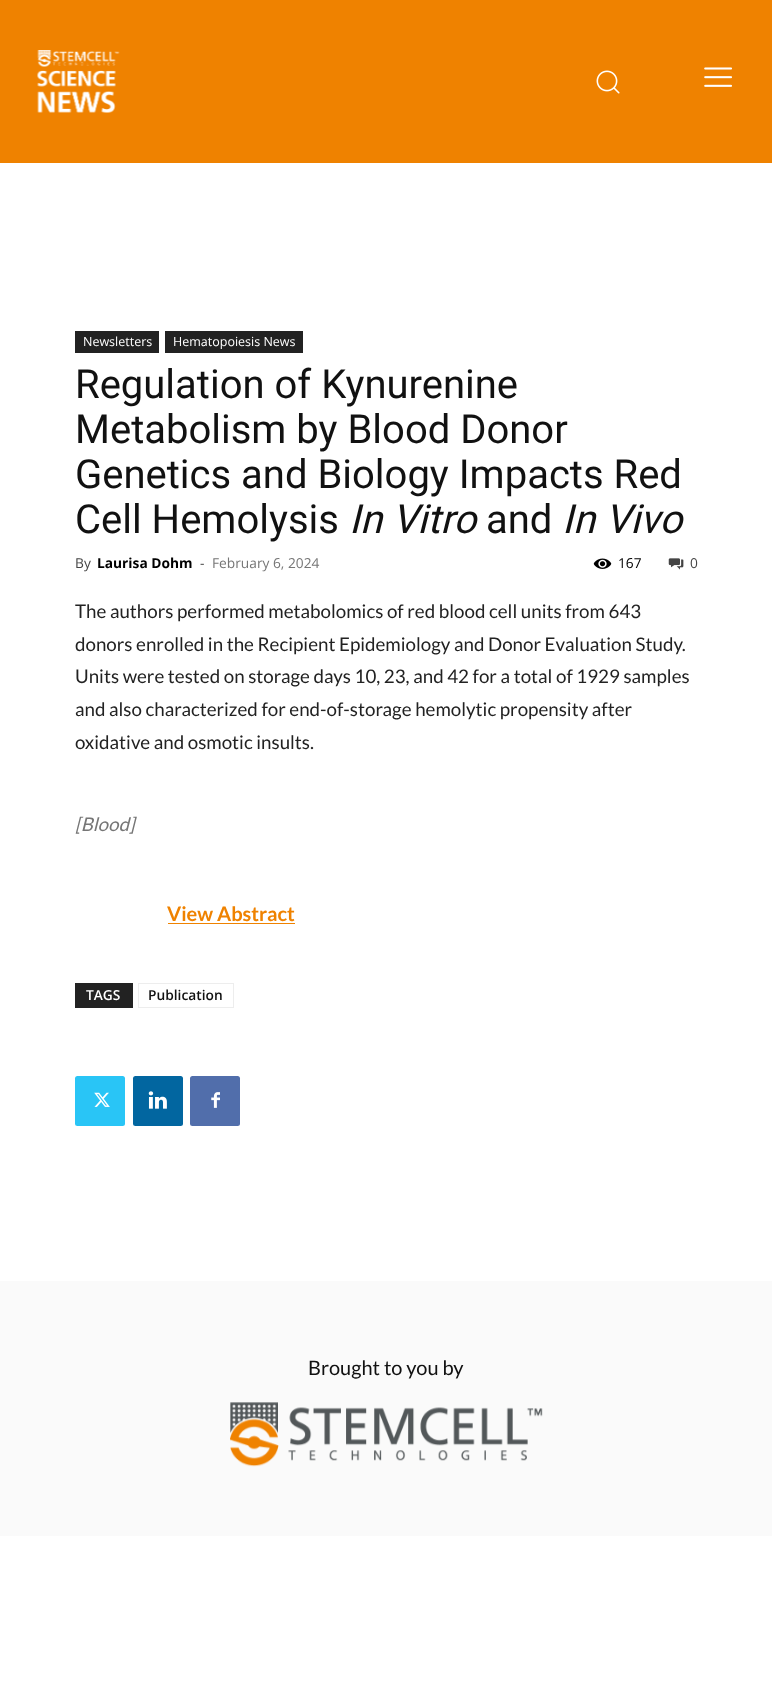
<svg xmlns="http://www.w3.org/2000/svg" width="772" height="1683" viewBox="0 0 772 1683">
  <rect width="100%" height="100%" fill="#ffffff"/>
  <rect x="0" y="0" width="772" height="163" fill="#ef8200"/>
  <image x="37" y="50" width="83" height="63" href="img1.png"/>
  <image x="596" y="70" width="24" height="24" href="img2.png"/>
  <image x="704" y="67" width="28" height="20" href="img3.png"/>
  <rect x="75" y="331" width="84" height="22" fill="#222222"/>
  <text x="83" y="346" font-family="Open Sans" font-size="12.5" fill="#ffffff">Newsletters</text>
  <rect x="165" y="331" width="138" height="22" fill="#222222"/>
  <text x="173" y="346" font-family="Open Sans" font-size="12.5" fill="#ffffff">Hematopoiesis News</text>
  <text x="75" y="398" font-family="Roboto" font-size="40" fill="#111111">Regulation of Kynurenine</text>
  <text x="75" y="443" font-family="Roboto" font-size="40" fill="#111111">Metabolism by Blood Donor</text>
  <text x="75" y="488" font-family="Roboto" font-size="40" fill="#111111">Genetics and Biology Impacts Red</text>
  <text x="75" y="533" font-family="Roboto" font-size="40" fill="#111111">Cell Hemolysis</text>
  <text x="349" y="533" font-family="Roboto" font-size="40" font-style="italic" fill="#111111">In Vitro</text>
  <text x="486" y="533" font-family="Roboto" font-size="40" fill="#111111">and</text>
  <text x="562" y="533" font-family="Roboto" font-size="40" font-style="italic" fill="#111111">In Vivo</text>
  <text x="75" y="568" font-family="Open Sans" font-size="13.75" fill="#444444">By</text>
  <text x="97" y="568" font-family="Open Sans" font-size="13.75" font-weight="bold" fill="#000000">Laurisa Dohm</text>
  <text x="200" y="568" font-family="Open Sans" font-size="13.75" fill="#444444">-</text>
  <text x="212" y="568" font-family="Open Sans" font-size="13.75" fill="#767676">February 6, 2024</text>
  <image x="593" y="558" width="19" height="11" href="img4.png"/>
  <text x="618" y="568" font-family="Open Sans" font-size="13.75" fill="#000000">167</text>
  <image x="668" y="558" width="16" height="12" href="img5.png"/>
  <text x="690" y="568" font-family="Open Sans" font-size="13.75" fill="#444444">0</text>
  <text x="75" y="618" font-family="Lato" font-size="18.75" fill="#222222">The authors performed metabolomics of red blood cell units from 643</text>
  <text x="75" y="651" font-family="Lato" font-size="18.75" fill="#222222">donors enrolled in the Recipient Epidemiology and Donor Evaluation Study.</text>
  <text x="75" y="683" font-family="Lato" font-size="18.75" fill="#222222">Units were tested on storage days 10, 23, and 42 for a total of 1929 samples</text>
  <text x="75" y="716" font-family="Lato" font-size="18.75" fill="#222222">and also characterized for end-of-storage hemolytic propensity after</text>
  <text x="75" y="749" font-family="Lato" font-size="18.75" fill="#222222">oxidative and osmotic insults.</text>
  <text x="75" y="831" font-family="Lato" font-size="18.75" font-style="italic" fill="#767676">[Blood]</text>
  <text x="167" y="921" font-family="Lato" font-size="20" font-weight="bold" fill="#ef8200">View Abstract</text>
  <rect x="168" y="923" width="127" height="1" fill="#ef8200"/>
  <rect x="75" y="983" width="58" height="25" fill="#222222"/>
  <text x="86" y="1000" font-family="Open Sans" font-size="13.75" font-weight="600" fill="#ffffff">TAGS</text>
  <rect x="138.5" y="983.5" width="95" height="24" fill="none" stroke="#ededed"/>
  <text x="148" y="1000" font-family="Open Sans" font-size="13.75" font-weight="600" fill="#111111">Publication</text>
  <rect x="75" y="1076" width="50" height="50" rx="2.5" fill="#29c5f6"/>
  <image x="94" y="1092" width="16" height="15" href="img6.png"/>
  <rect x="133" y="1076" width="50" height="50" rx="2.5" fill="#0266a0"/>
  <image x="148" y="1091" width="19" height="18" href="img7.png"/>
  <rect x="190" y="1076" width="50" height="50" rx="2.5" fill="#516eab"/>
  <image x="211" y="1092" width="9" height="16" href="img8.png"/>
  <rect x="0" y="1281" width="772" height="255" fill="#fafafa"/>
  <text x="308" y="1375" font-family="Lato" font-size="20" fill="#111111">Brought to you by</text>
  <image x="230" y="1402" width="313" height="65" href="img9.png"/>
</svg>
